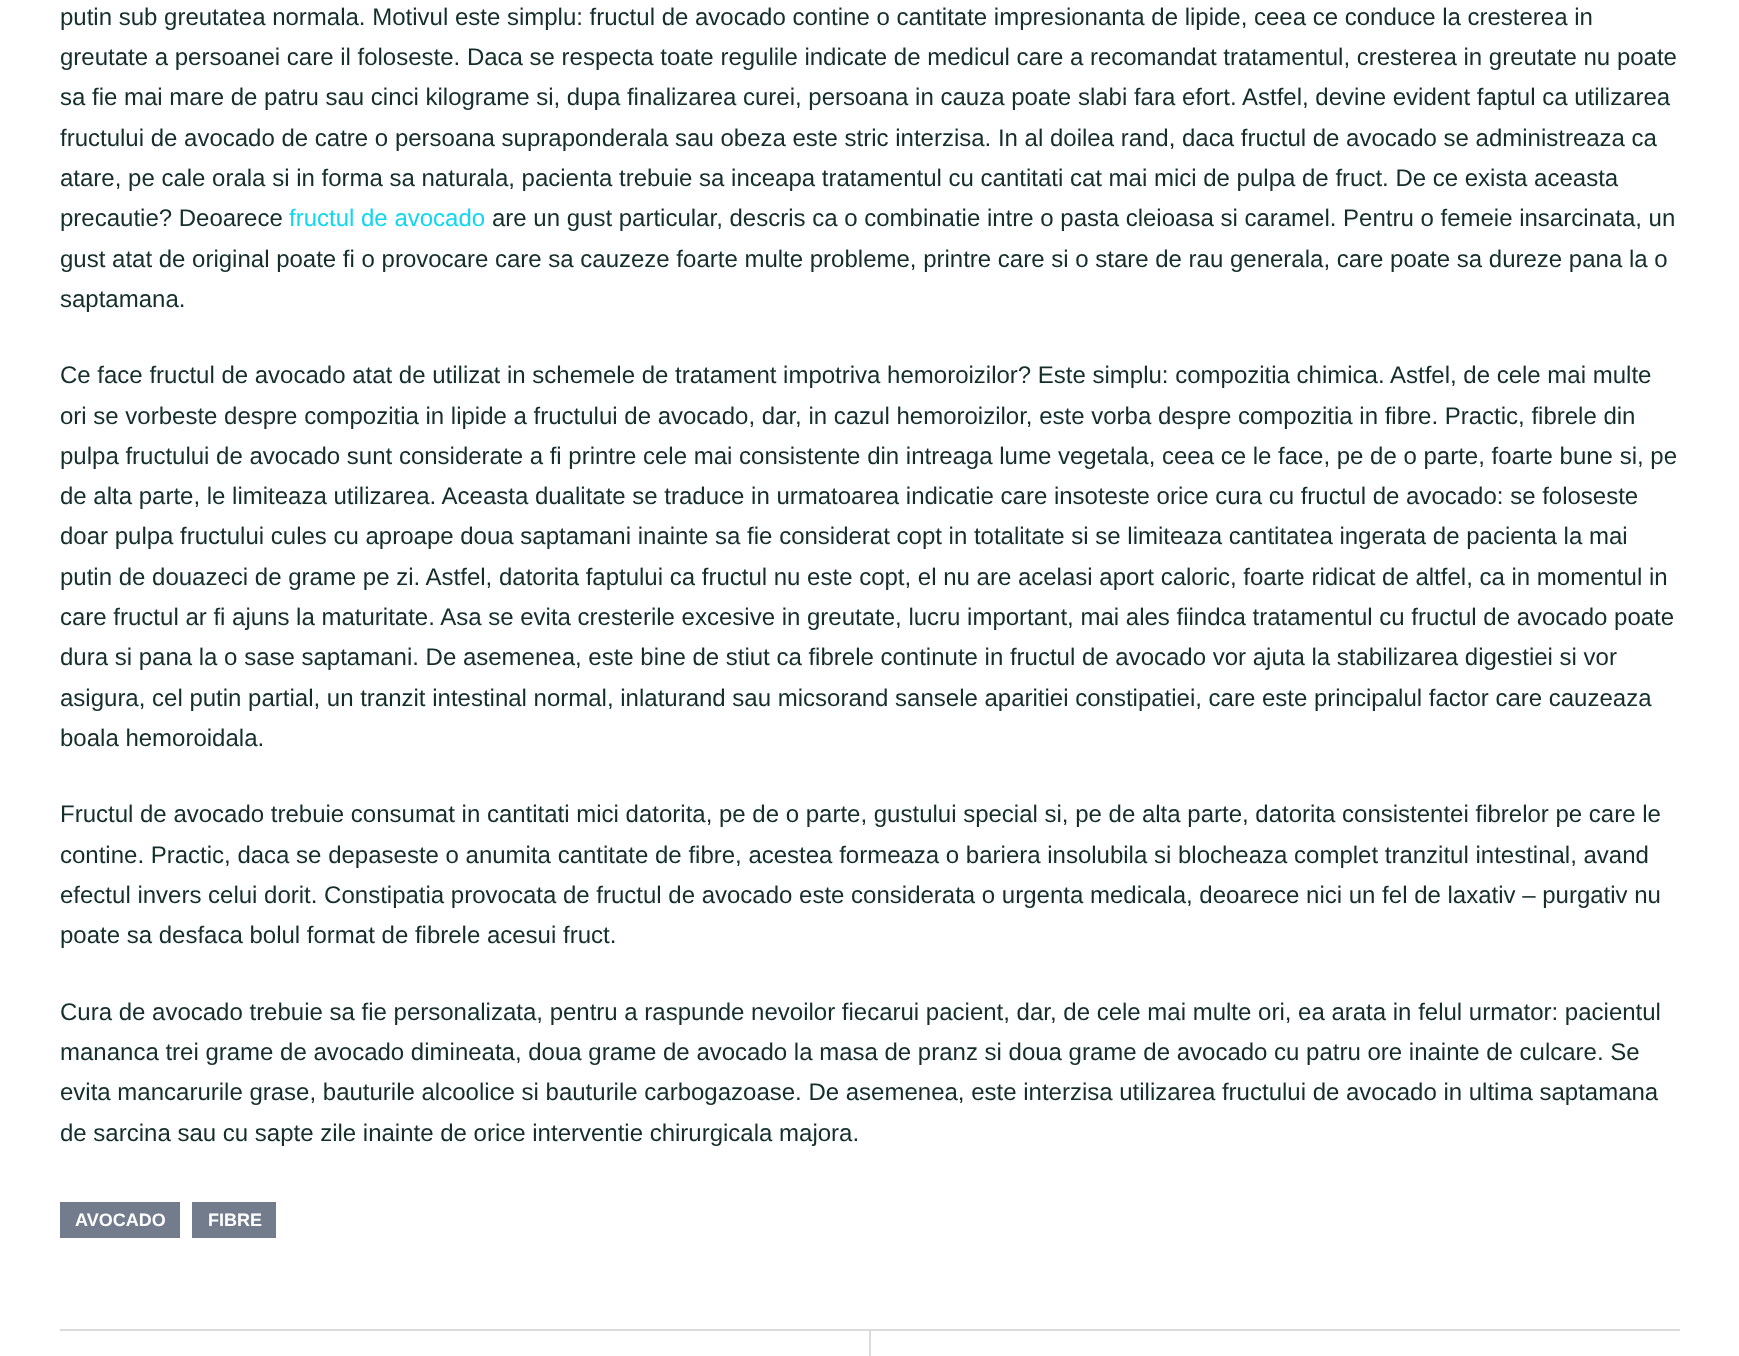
<svg xmlns="http://www.w3.org/2000/svg" width="1739" height="1356" viewBox="0 0 1739 1356">
  <rect width="100%" height="100%" fill="#ffffff"/>
  <text x="60" y="25" font-family="Liberation Sans" font-size="24" fill="#142e2c">putin sub greutatea normala. Motivul este simplu: fructul de avocado contine o cantitate impresionanta de lipide, ceea ce conduce la cresterea in</text>
  <text x="60" y="65" font-family="Liberation Sans" font-size="24" fill="#142e2c">greutate a persoanei care il foloseste. Daca se respecta toate regulile indicate de medicul care a recomandat tratamentul, cresterea in greutate nu poate</text>
  <text x="60" y="105" font-family="Liberation Sans" font-size="24" fill="#142e2c">sa fie mai mare de patru sau cinci kilograme si, dupa finalizarea curei, persoana in cauza poate slabi fara efort. Astfel, devine evident faptul ca utilizarea</text>
  <text x="60" y="146" font-family="Liberation Sans" font-size="24" fill="#142e2c">fructului de avocado de catre o persoana supraponderala sau obeza este stric interzisa. In al doilea rand, daca fructul de avocado se administreaza ca</text>
  <text x="60" y="186" font-family="Liberation Sans" font-size="24" fill="#142e2c">atare, pe cale orala si in forma sa naturala, pacienta trebuie sa inceapa tratamentul cu cantitati cat mai mici de pulpa de fruct. De ce exista aceasta</text>
  <text x="60" y="226" font-family="Liberation Sans" font-size="24" fill="#142e2c">precautie? Deoarece</text>
  <text x="289" y="226" font-family="Liberation Sans" font-size="24" fill="#0fd7ef">fructul de avocado</text>
  <text x="492" y="226" font-family="Liberation Sans" font-size="24" fill="#142e2c">are un gust particular, descris ca o combinatie intre o pasta cleioasa si caramel. Pentru o femeie insarcinata, un</text>
  <text x="60" y="267" font-family="Liberation Sans" font-size="24" fill="#142e2c">gust atat de original poate fi o provocare care sa cauzeze foarte multe probleme, printre care si o stare de rau generala, care poate sa dureze pana la o</text>
  <text x="60" y="307" font-family="Liberation Sans" font-size="24" fill="#142e2c">saptamana.</text>
  <text x="60" y="383" font-family="Liberation Sans" font-size="24" fill="#142e2c">Ce face fructul de avocado atat de utilizat in schemele de tratament impotriva hemoroizilor? Este simplu: compozitia chimica. Astfel, de cele mai multe</text>
  <text x="60" y="424" font-family="Liberation Sans" font-size="24" fill="#142e2c">ori se vorbeste despre compozitia in lipide a fructului de avocado, dar, in cazul hemoroizilor, este vorba despre compozitia in fibre. Practic, fibrele din</text>
  <text x="60" y="464" font-family="Liberation Sans" font-size="24" fill="#142e2c">pulpa fructului de avocado sunt considerate a fi printre cele mai consistente din intreaga lume vegetala, ceea ce le face, pe de o parte, foarte bune si, pe</text>
  <text x="60" y="504" font-family="Liberation Sans" font-size="24" fill="#142e2c">de alta parte, le limiteaza utilizarea. Aceasta dualitate se traduce in urmatoarea indicatie care insoteste orice cura cu fructul de avocado: se foloseste</text>
  <text x="60" y="544" font-family="Liberation Sans" font-size="24" fill="#142e2c">doar pulpa fructului cules cu aproape doua saptamani inainte sa fie considerat copt in totalitate si se limiteaza cantitatea ingerata de pacienta la mai</text>
  <text x="60" y="585" font-family="Liberation Sans" font-size="24" fill="#142e2c">putin de douazeci de grame pe zi. Astfel, datorita faptului ca fructul nu este copt, el nu are acelasi aport caloric, foarte ridicat de altfel, ca in momentul in</text>
  <text x="60" y="625" font-family="Liberation Sans" font-size="24" fill="#142e2c">care fructul ar fi ajuns la maturitate. Asa se evita cresterile excesive in greutate, lucru important, mai ales fiindca tratamentul cu fructul de avocado poate</text>
  <text x="60" y="665" font-family="Liberation Sans" font-size="24" fill="#142e2c">dura si pana la o sase saptamani. De asemenea, este bine de stiut ca fibrele continute in fructul de avocado vor ajuta la stabilizarea digestiei si vor</text>
  <text x="60" y="706" font-family="Liberation Sans" font-size="24" fill="#142e2c">asigura, cel putin partial, un tranzit intestinal normal, inlaturand sau micsorand sansele aparitiei constipatiei, care este principalul factor care cauzeaza</text>
  <text x="60" y="746" font-family="Liberation Sans" font-size="24" fill="#142e2c">boala hemoroidala.</text>
  <text x="60" y="822" font-family="Liberation Sans" font-size="24" fill="#142e2c">Fructul de avocado trebuie consumat in cantitati mici datorita, pe de o parte, gustului special si, pe de alta parte, datorita consistentei fibrelor pe care le</text>
  <text x="60" y="863" font-family="Liberation Sans" font-size="24" fill="#142e2c">contine. Practic, daca se depaseste o anumita cantitate de fibre, acestea formeaza o bariera insolubila si blocheaza complet tranzitul intestinal, avand</text>
  <text x="60" y="903" font-family="Liberation Sans" font-size="24" fill="#142e2c">efectul invers celui dorit. Constipatia provocata de fructul de avocado este considerata o urgenta medicala, deoarece nici un fel de laxativ – purgativ nu</text>
  <text x="60" y="943" font-family="Liberation Sans" font-size="24" fill="#142e2c">poate sa desfaca bolul format de fibrele acesui fruct.</text>
  <text x="60" y="1020" font-family="Liberation Sans" font-size="24" fill="#142e2c">Cura de avocado trebuie sa fie personalizata, pentru a raspunde nevoilor fiecarui pacient, dar, de cele mai multe ori, ea arata in felul urmator: pacientul</text>
  <text x="60" y="1060" font-family="Liberation Sans" font-size="24" fill="#142e2c">mananca trei grame de avocado dimineata, doua grame de avocado la masa de pranz si doua grame de avocado cu patru ore inainte de culcare. Se</text>
  <text x="60" y="1100" font-family="Liberation Sans" font-size="24" fill="#142e2c">evita mancarurile grase, bauturile alcoolice si bauturile carbogazoase. De asemenea, este interzisa utilizarea fructului de avocado in ultima saptamana</text>
  <text x="60" y="1141" font-family="Liberation Sans" font-size="24" fill="#142e2c">de sarcina sau cu sapte zile inainte de orice interventie chirurgicala majora.</text>
  <rect x="60" y="1202" width="120" height="36" fill="#737c8c"/>
  <text x="75" y="1226" font-family="Liberation Sans" font-size="18" font-weight="bold" fill="#ffffff">AVOCADO</text>
  <rect x="192" y="1202" width="84" height="36" fill="#737c8c"/>
  <text x="208" y="1226" font-family="Liberation Sans" font-size="18" font-weight="bold" fill="#ffffff">FIBRE</text>
  <rect x="60" y="1329" width="1620" height="2" fill="#dbdbdb"/>
  <rect x="869" y="1331" width="2" height="25" fill="#dbdbdb"/>
</svg>
